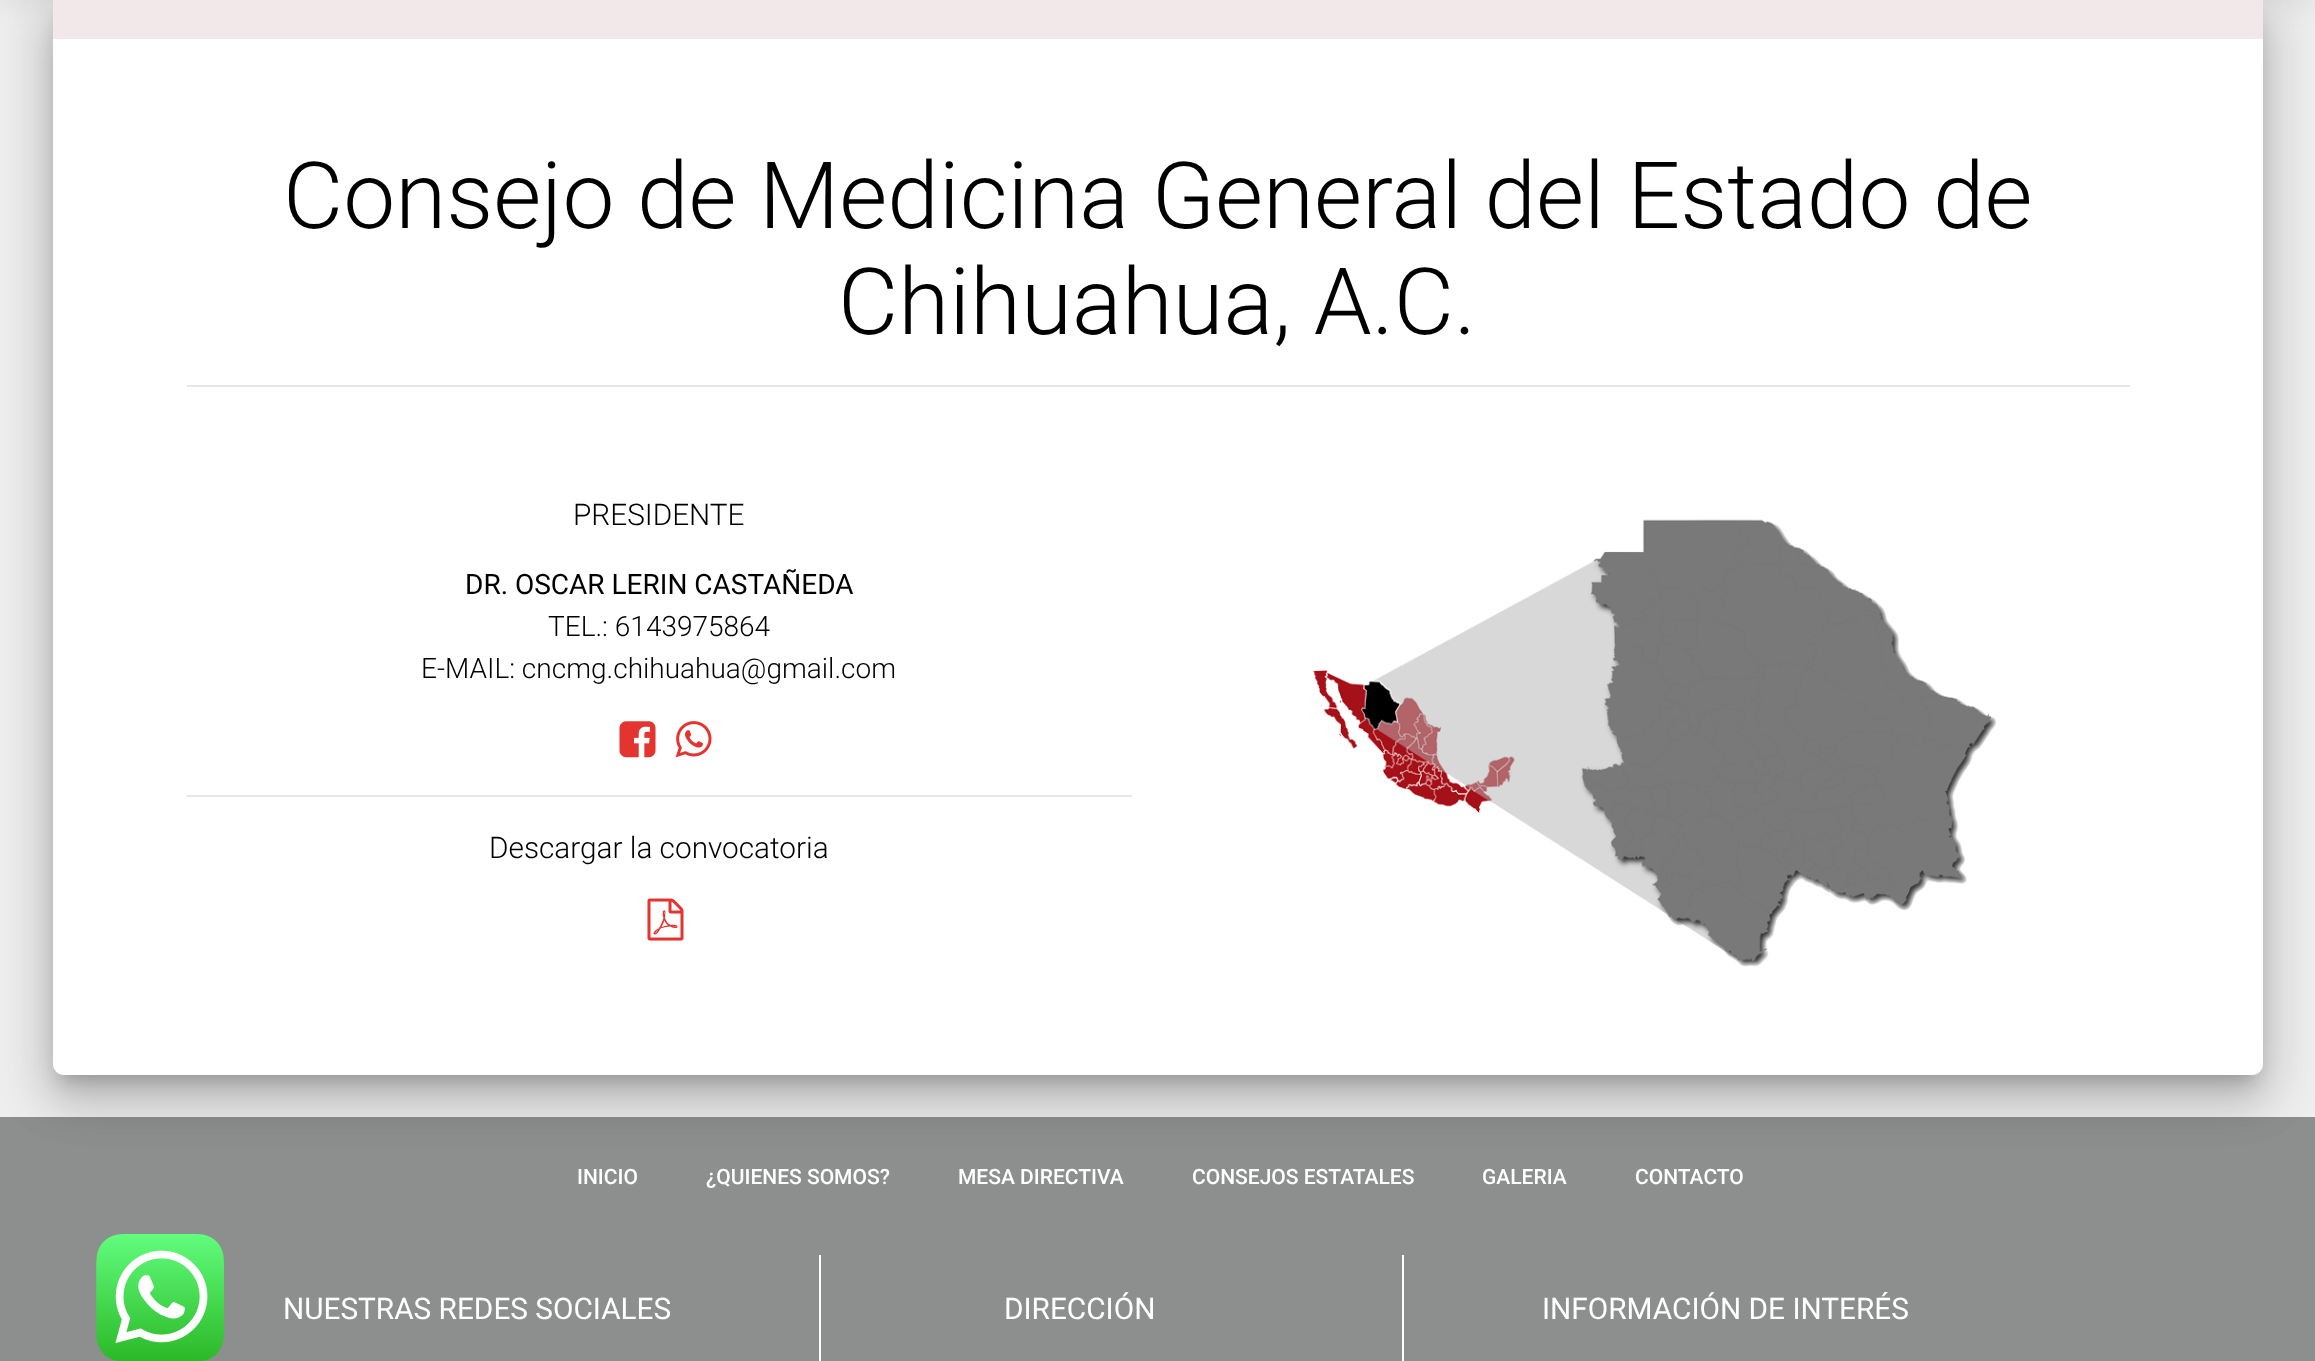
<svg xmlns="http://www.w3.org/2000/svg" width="2315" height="1361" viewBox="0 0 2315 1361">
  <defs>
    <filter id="blur1" x="-50%" y="-200%" width="200%" height="500%"><feGaussianBlur stdDeviation="16"/></filter>
    <filter id="blur2" x="-50%" y="-200%" width="200%" height="500%"><feGaussianBlur stdDeviation="9"/></filter>
    <filter id="blur3" x="-50%" y="-200%" width="200%" height="500%"><feGaussianBlur stdDeviation="26"/></filter>
    <filter id="blur4" x="-50%" y="-200%" width="200%" height="500%"><feGaussianBlur stdDeviation="21"/></filter>
  </defs>
  <rect width="100%" height="100%" fill="#eeeeee"/>
  <rect x="0" y="-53" width="2315" height="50" rx="5" fill="#000000" fill-opacity="0.12" filter="url(#blur1)"/>
  <rect x="61" y="19" width="2193" height="1061" rx="2" fill="#000000" fill-opacity="0.2" filter="url(#blur2)"/>
  <rect x="0" y="1117" width="2315" height="244" fill="#8d8f8f"/>
  <rect x="44" y="-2" width="2228" height="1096" rx="19" fill="#000000" fill-opacity="0.12" filter="url(#blur3)"/>
  <rect x="49" y="21" width="2217" height="1085" rx="14" fill="#000000" fill-opacity="0.14" filter="url(#blur4)"/>
  <rect x="53" y="-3" width="2210" height="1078" rx="11" fill="#ffffff"/>
  <rect x="53" y="0" width="2210" height="39" fill="#f3e8e9"/>
  <text x="283" y="228" font-family="Roboto" font-size="92.75" font-weight="300" fill="#000000">Consejo de Medicina General del Estado de</text>
  <text x="838" y="334" font-family="Roboto" font-size="92.75" font-weight="300" fill="#000000">Chihuahua, A.C.</text>
  <rect x="187" y="385" width="1943" height="2" fill="#e6e6e6"/>
  <text x="573" y="525" font-family="Roboto" font-size="29.75" font-weight="300" fill="#000000">PRESIDENTE</text>
  <text x="465" y="594" font-family="Roboto" font-size="28" fill="#000000">DR. OSCAR LERIN CASTAÑEDA</text>
  <text x="548" y="636" font-family="Roboto" font-size="28" font-weight="300" fill="#000000">TEL.: 6143975864</text>
  <text x="421" y="678" font-family="Roboto" font-size="28" font-weight="300" fill="#000000">E-MAIL: cncmg.chihuahua@gmail.com</text>
  <image x="619" y="721" width="37" height="37" href="img1.png"/>
  <image x="675" y="721" width="37" height="37" href="img2.png"/>
  <rect x="187" y="795" width="945" height="2" fill="#e6e6e6"/>
  <text x="489" y="858" font-family="Roboto" font-size="29.75" font-weight="300" fill="#000000">Descargar la convocatoria</text>
  <image x="647" y="898" width="37" height="43" href="img3.png"/>
  <image x="1313" y="519" width="684" height="448" href="img4.png"/>
  <image x="96" y="1234" width="128" height="127" href="img5.png"/>
  <text x="577" y="1184" font-family="Roboto" font-size="21" font-weight="500" fill="#ffffff">INICIO</text>
  <text x="706" y="1184" font-family="Roboto" font-size="21" font-weight="500" fill="#ffffff">¿QUIENES SOMOS?</text>
  <text x="958" y="1184" font-family="Roboto" font-size="21" font-weight="500" fill="#ffffff">MESA DIRECTIVA</text>
  <text x="1192" y="1184" font-family="Roboto" font-size="21" font-weight="500" fill="#ffffff">CONSEJOS ESTATALES</text>
  <text x="1482" y="1184" font-family="Roboto" font-size="21" font-weight="500" fill="#ffffff">GALERIA</text>
  <text x="1635" y="1184" font-family="Roboto" font-size="21" font-weight="500" fill="#ffffff">CONTACTO</text>
  <text x="283" y="1319" font-family="Roboto" font-size="29.75" fill="#ffffff">NUESTRAS REDES SOCIALES</text>
  <rect x="819" y="1255" width="2" height="106" fill="#ffffff"/>
  <text x="1004" y="1319" font-family="Roboto" font-size="29.75" fill="#ffffff">DIRECCIÓN</text>
  <rect x="1402" y="1255" width="2" height="106" fill="#ffffff"/>
  <text x="1542" y="1319" font-family="Roboto" font-size="29.75" fill="#ffffff">INFORMACIÓN DE INTERÉS</text>
</svg>
